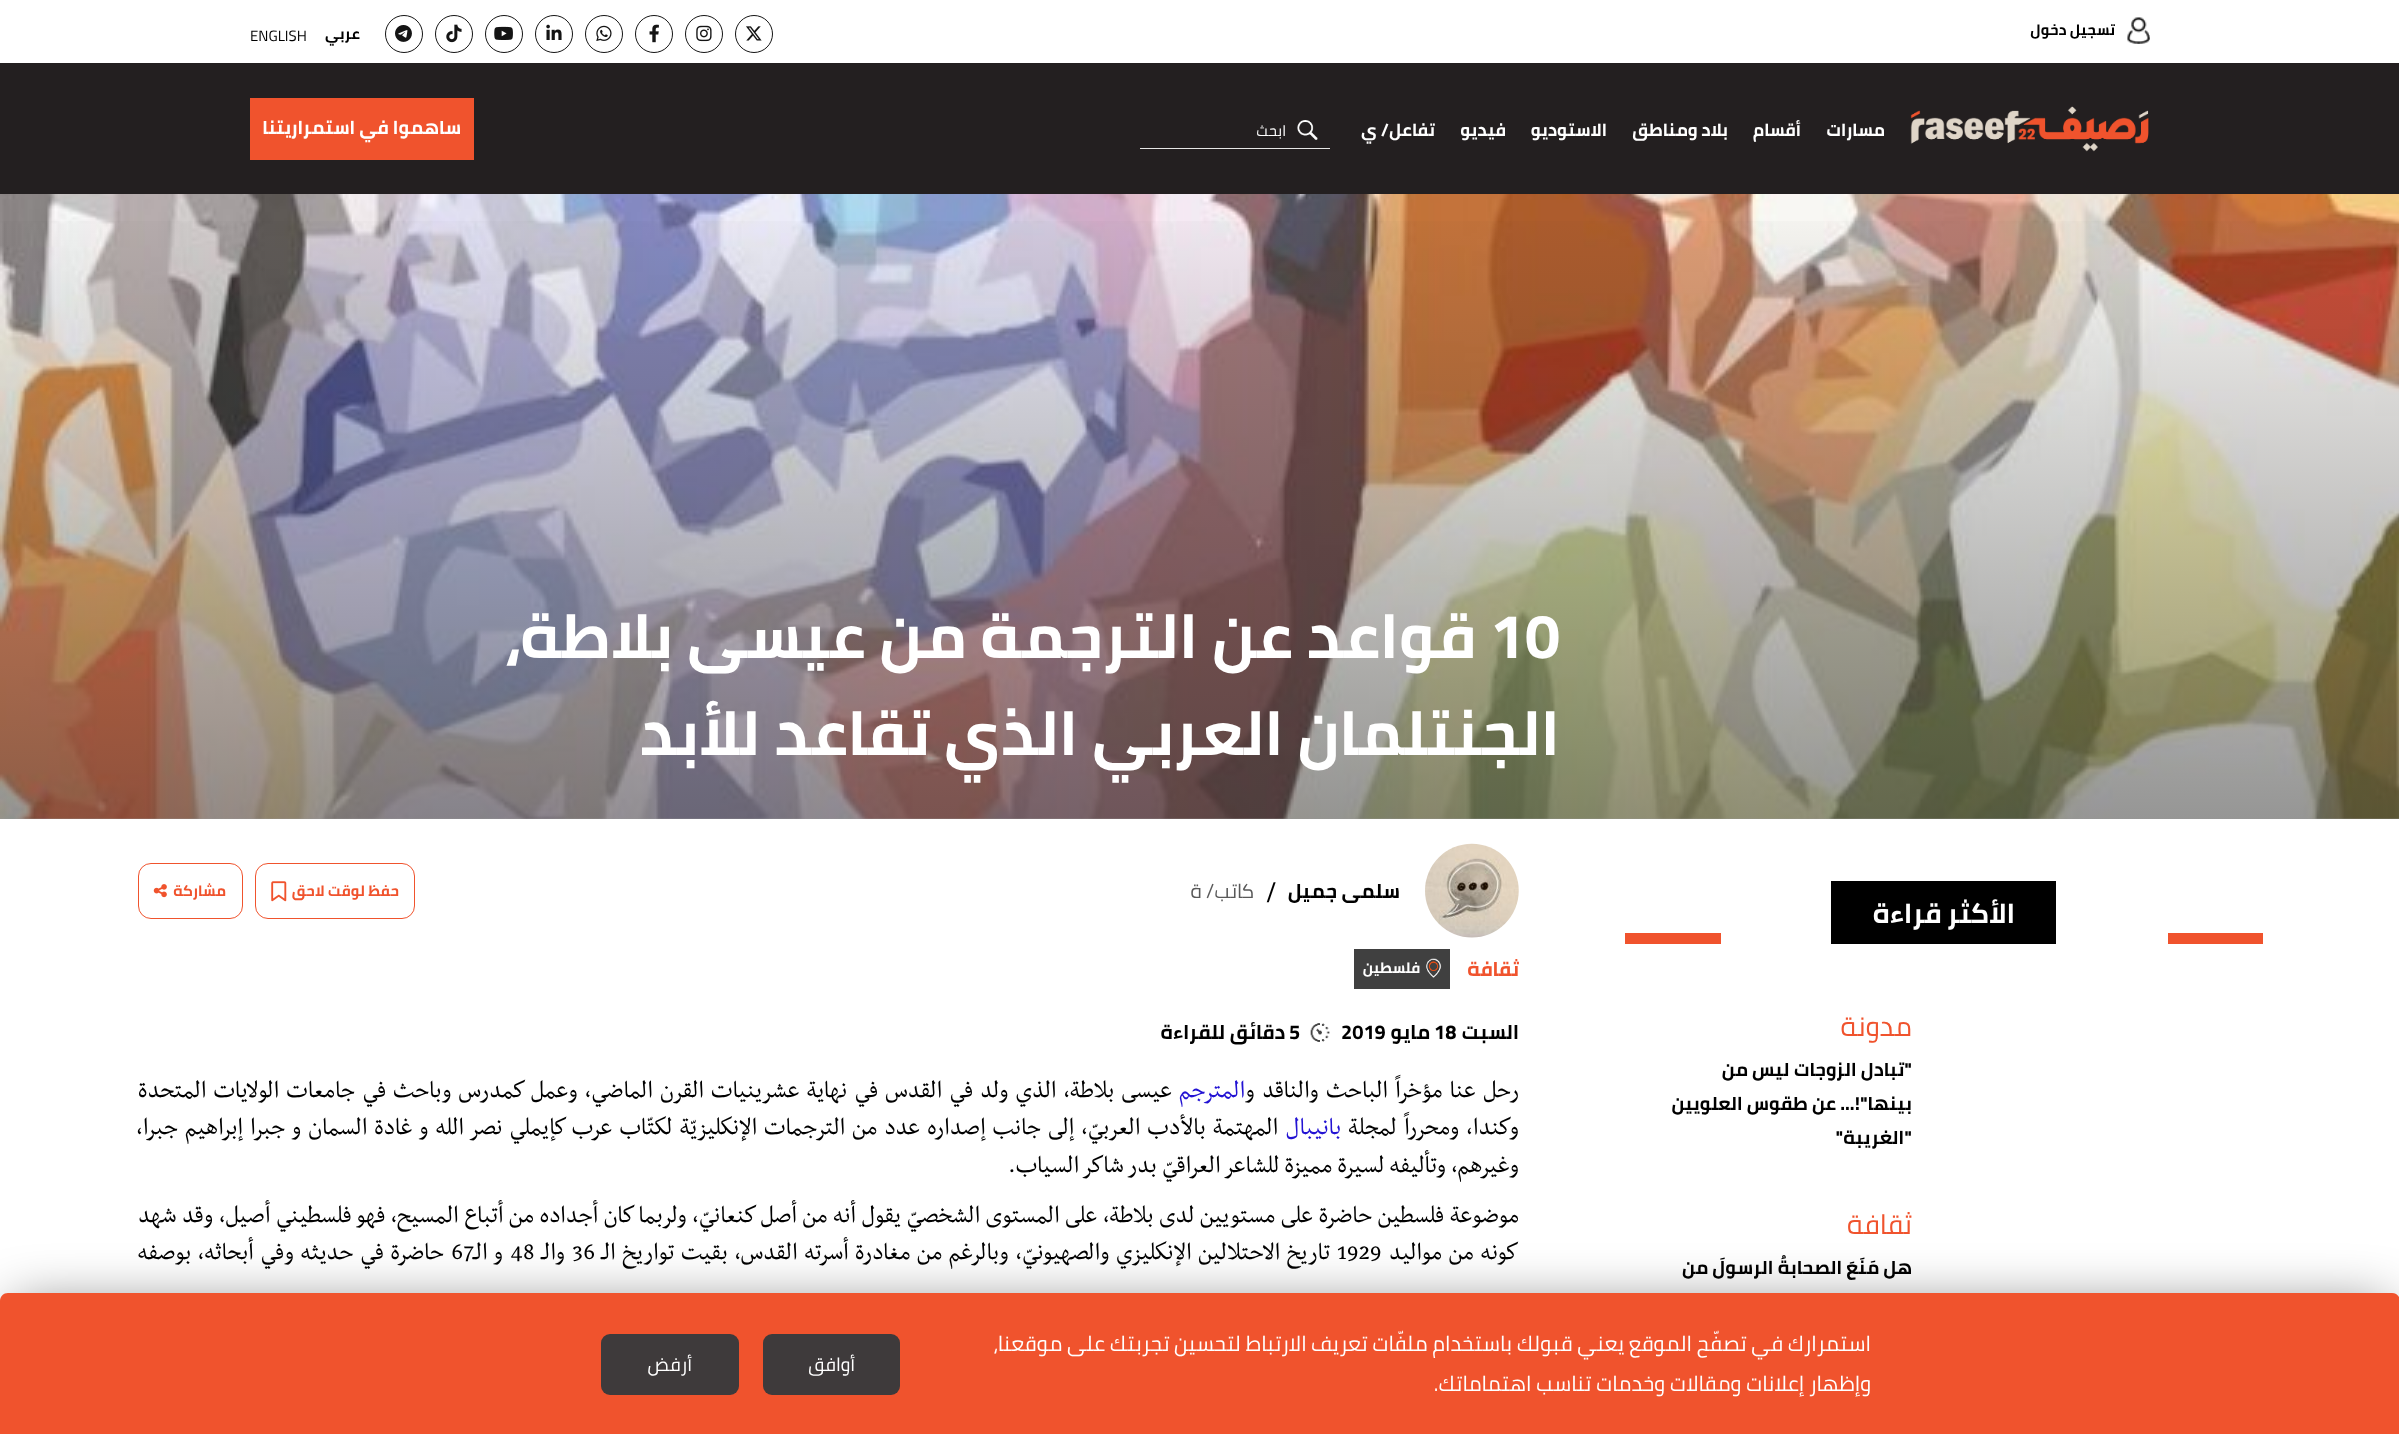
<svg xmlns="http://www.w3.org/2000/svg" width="2399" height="1434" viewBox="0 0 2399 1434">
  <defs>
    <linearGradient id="g1" gradientUnits="userSpaceOnUse" x1="0" y1="194" x2="0" y2="819"><stop offset="0" stop-color="#313131" stop-opacity="0"/><stop offset="1" stop-color="#313131" stop-opacity="0.5"/></linearGradient>
    <filter id="blur1" x="-50%" y="-200%" width="200%" height="500%"><feGaussianBlur stdDeviation="27"/></filter>
  </defs>
  <rect width="100%" height="100%" fill="#ffffff"/>
  <image x="2127" y="17" width="23" height="27" href="img1.png"/>
  <text x="2115" y="35" font-family="Cairo" font-size="15" font-weight="bold" direction="rtl" fill="#000000">تسجيل دخول</text>
  <circle cx="754" cy="34" r="18.5" fill="none" stroke="#141414"/>
  <image x="746" y="26" width="16" height="15" href="img2.png"/>
  <circle cx="704" cy="34" r="18.5" fill="none" stroke="#141414"/>
  <image x="696" y="25" width="16" height="17" href="img3.png"/>
  <circle cx="654" cy="34" r="18.5" fill="none" stroke="#141414"/>
  <image x="649" y="24" width="10" height="19" href="img4.png"/>
  <circle cx="604" cy="34" r="18.5" fill="none" stroke="#141414"/>
  <image x="596" y="25" width="16" height="16" href="img5.png"/>
  <circle cx="554" cy="34" r="18.5" fill="none" stroke="#141414"/>
  <image x="546" y="24" width="16" height="16" href="img6.png"/>
  <circle cx="504" cy="34" r="18.5" fill="none" stroke="#141414"/>
  <image x="494" y="26" width="19" height="14" href="img7.png"/>
  <circle cx="454" cy="34" r="18.5" fill="none" stroke="#141414"/>
  <image x="446" y="24" width="16" height="19" href="img8.png"/>
  <circle cx="404" cy="34" r="18.5" fill="none" stroke="#141414"/>
  <image x="395" y="25" width="17" height="17" href="img9.png"/>
  <text x="360" y="39" font-family="Cairo" font-size="15" font-weight="bold" direction="rtl" fill="#000000">عربي</text>
  <text x="250" y="41" font-family="Cairo" font-size="15" fill="#000000">ENGLISH</text>
  <rect x="0" y="63" width="2399" height="131" fill="#231f20"/>
  <image x="1910" y="106" width="239" height="46" href="img10.png"/>
  <text x="1885" y="136" font-family="Cairo" font-size="17.5" font-weight="bold" direction="rtl" fill="#ffffff">مسارات</text>
  <text x="1801" y="136" font-family="Cairo" font-size="17.5" font-weight="bold" direction="rtl" fill="#ffffff">أقسام</text>
  <text x="1728" y="136" font-family="Cairo" font-size="17.5" font-weight="bold" direction="rtl" fill="#ffffff">بلاد ومناطق</text>
  <text x="1607" y="136" font-family="Cairo" font-size="17.5" font-weight="bold" direction="rtl" fill="#ffffff">الاستوديو</text>
  <text x="1506" y="136" font-family="Cairo" font-size="17.5" font-weight="bold" direction="rtl" fill="#ffffff">فيديو</text>
  <text x="1435" y="136" font-family="Cairo" font-size="17.5" font-weight="bold" direction="rtl" fill="#ffffff">تفاعل/ ي</text>
  <image x="1297" y="120" width="21" height="20" href="img11.png"/>
  <rect x="1140" y="148" width="190" height="1" fill="#e6e6e6"/>
  <text x="1286" y="136" font-family="Cairo" font-size="15" direction="rtl" fill="#ffffff">ابحث</text>
  <rect x="250" y="98" width="224" height="62" fill="#f0532d"/>
  <text x="461" y="134" font-family="Cairo" font-size="18.75" font-weight="bold" direction="rtl" fill="#ffffff">ساهموا في استمراريتنا</text>
  <image x="0" y="194" width="2399" height="625" href="img12.png"/>
  <rect x="0" y="221" width="2399" height="598" fill="url(#g1)"/>
  <text x="1490" y="658" font-family="Cairo" font-size="62.5" font-weight="bold" fill="#ffffff">10</text>
  <text x="1476" y="658" font-family="Cairo" font-size="62.5" font-weight="bold" direction="rtl" fill="#ffffff">قواعد عن الترجمة من عيسى بلاطة،</text>
  <text x="1560" y="755" font-family="Cairo" font-size="62.5" font-weight="bold" direction="rtl" fill="#ffffff">الجنتلمان العربي الذي تقاعد للأبد</text>
  <rect x="1831" y="881" width="225" height="63" fill="#000000"/>
  <text x="2015" y="923" font-family="Cairo" font-size="27.5" font-weight="bold" direction="rtl" fill="#ffffff">الأكثر قراءة</text>
  <rect x="2168" y="933" width="95" height="11" fill="#f0532d"/>
  <rect x="1625" y="933" width="96" height="11" fill="#f0532d"/>
  <text x="1912" y="1036" font-family="Cairo" font-size="27.5" direction="rtl" fill="#f0532d">مدونة</text>
  <text x="1912" y="1076" font-family="Cairo" font-size="18.75" font-weight="bold" direction="rtl" fill="#000000">"تبادل الزوجات ليس من</text>
  <text x="1912" y="1110" font-family="Cairo" font-size="18.75" font-weight="bold" direction="rtl" fill="#000000">بينها"!... عن طقوس العلويين</text>
  <text x="1912" y="1144" font-family="Cairo" font-size="18.75" font-weight="bold" direction="rtl" fill="#000000">"الغريبة"</text>
  <text x="1912" y="1234" font-family="Cairo" font-size="27.5" direction="rtl" fill="#f0532d">ثقافة</text>
  <text x="1912" y="1274" font-family="Cairo" font-size="18.75" font-weight="bold" direction="rtl" fill="#000000">هل مَنَعَ الصحابةُ الرسولَ من</text>
  <image x="1425" y="843" width="94" height="95" href="img13.png"/>
  <text x="1400" y="898" font-family="Cairo" font-size="20" font-weight="bold" direction="rtl" fill="#000000">سلمى جميل</text>
  <text x="1267" y="902" font-family="Liberation Serif" font-size="30" font-weight="bold" fill="#000000">/</text>
  <text x="1254" y="898" font-family="Cairo" font-size="20" direction="rtl" fill="#595959">كاتب/ ة</text>
  <rect x="255.5" y="863.5" width="159" height="55" rx="12.5" fill="none" stroke="#f0532d"/>
  <text x="399" y="896" font-family="Cairo" font-size="15" font-weight="bold" direction="rtl" fill="#f0532d">حفظ لوقت لاحق</text>
  <image x="271" y="881" width="16" height="21" href="img14.png"/>
  <rect x="138.5" y="863.5" width="104" height="55" rx="12.5" fill="none" stroke="#f0532d"/>
  <text x="226" y="896" font-family="Cairo" font-size="15" font-weight="bold" direction="rtl" fill="#f0532d">مشاركة</text>
  <image x="153" y="884" width="14" height="14" href="img15.png"/>
  <text x="1519" y="976" font-family="Cairo" font-size="20" font-weight="bold" direction="rtl" fill="#f0532d">ثقافة</text>
  <rect x="1354" y="949" width="96" height="40" fill="#404040"/>
  <image x="1426" y="958" width="16" height="20" href="img16.png"/>
  <text x="1420" y="973" font-family="Cairo" font-size="15" font-weight="bold" direction="rtl" fill="#ffffff">فلسطين</text>
  <text x="1519" y="1039" font-family="Cairo" font-size="20" font-weight="bold" direction="rtl" fill="#000000">السبت</text>
  <text x="1434" y="1039" font-family="Cairo" font-size="20" font-weight="bold" fill="#000000">18</text>
  <text x="1430" y="1039" font-family="Cairo" font-size="20" font-weight="bold" direction="rtl" fill="#000000">مايو</text>
  <text x="1341" y="1039" font-family="Cairo" font-size="20" font-weight="bold" fill="#000000">2019</text>
  <image x="1310" y="1023" width="20" height="19" href="img17.png"/>
  <text x="1289" y="1039" font-family="Cairo" font-size="20" font-weight="bold" fill="#000000">5</text>
  <text x="1285" y="1039" font-family="Cairo" font-size="20" font-weight="bold" direction="rtl" fill="#000000">دقائق للقراءة</text>
  <text x="1519" y="1097" word-spacing="2" font-family="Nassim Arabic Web" font-size="27.5" direction="rtl" fill="#000000">رحل عنا مؤخراً الباحث والناقد و</text>
  <text x="1245" y="1097" font-family="Nassim Arabic Web" font-size="27.5" direction="rtl" fill="#2212d3">المترجم</text>
  <text x="1172" y="1097" word-spacing="2" font-family="Nassim Arabic Web" font-size="27.5" direction="rtl" fill="#000000">عيسى بلاطة، الذي ولد في القدس في نهاية عشرينيات القرن الماضي، وعمل كمدرس وباحث في جامعات الولايات المتحدة</text>
  <text x="1519" y="1134" word-spacing="1.9" font-family="Nassim Arabic Web" font-size="27.5" direction="rtl" fill="#000000">وكندا، ومحرراً لمجلة</text>
  <text x="1341" y="1134" font-family="Nassim Arabic Web" font-size="27.5" direction="rtl" fill="#2212d3">بانيبال</text>
  <text x="1278" y="1134" word-spacing="1.9" font-family="Nassim Arabic Web" font-size="27.5" direction="rtl" fill="#000000">المهتمة بالأدب العربيّ، إلى جانب إصداره عدد من الترجمات الإنكليزيّة لكتّاب عرب كإيملي نصر الله و غادة السمان و جبرا إبراهيم جبرا،</text>
  <text x="1519" y="1172" font-family="Nassim Arabic Web" font-size="27.5" direction="rtl" fill="#000000">وغيرهم، وتأليفه لسيرة مميزة للشاعر العراقيّ بدر شاكر السياب.</text>
  <text x="1519" y="1222" word-spacing="0.4" font-family="Nassim Arabic Web" font-size="27.5" direction="rtl" fill="#000000">موضوعة فلسطين حاضرة على مستويين لدى بلاطة، على المستوى الشخصيّ يقول أنه من أصل كنعانيّ، ولربما كان أجداده من أتباع المسيح، فهو فلسطيني أصيل، وقد شهد</text>
  <text x="1519" y="1259" word-spacing="1.5" font-family="Nassim Arabic Web" font-size="27.5" direction="rtl" fill="#000000">كونه من مواليد</text>
  <text x="1337" y="1259" font-family="Nassim Arabic Web" font-size="27.5" fill="#000000">1929</text>
  <text x="1330" y="1259" word-spacing="1.5" font-family="Nassim Arabic Web" font-size="27.5" direction="rtl" fill="#000000">تاريخ الاحتلالين الإنكليزي والصهيونيّ، وبالرغم من مغادرة أسرته القدس، بقيت تواريخ الـ</text>
  <text x="572" y="1259" font-family="Nassim Arabic Web" font-size="27.5" fill="#000000">36</text>
  <text x="565" y="1259" font-family="Nassim Arabic Web" font-size="27.5" direction="rtl" fill="#000000">والـ</text>
  <text x="510" y="1259" font-family="Nassim Arabic Web" font-size="27.5" fill="#000000">48</text>
  <text x="451" y="1259" font-family="Nassim Arabic Web" font-size="27.5" fill="#000000">67</text>
  <text x="503" y="1259" word-spacing="1.5" font-family="Nassim Arabic Web" font-size="27.5" direction="rtl" fill="#000000">و الـ</text>
  <text x="444" y="1259" word-spacing="1.5" font-family="Nassim Arabic Web" font-size="27.5" direction="rtl" fill="#000000">حاضرة في حديثه وفي أبحاثه، بوصفه</text>
  <rect x="13" y="1305" width="2375" height="118" fill="#000000" fill-opacity="0.5" filter="url(#blur1)"/>
  <path d="M8 1293H2392C2396.5 1293 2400 1296.5 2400 1301V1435H0V1301C0 1296.5 3.5 1293 8 1293Z" fill="#f0532d"/>
  <text x="1871" y="1351" font-family="Cairo" font-size="21.25" direction="rtl" fill="#ffffff">استمرارك في تصفّح الموقع يعني قبولك باستخدام ملفّات تعريف الارتباط لتحسين تجربتك على موقعنا،</text>
  <text x="1871" y="1391" font-family="Cairo" font-size="21.25" direction="rtl" fill="#ffffff">وإظهار إعلانات ومقالات وخدمات تناسب اهتماماتك.</text>
  <rect x="763" y="1334" width="137" height="61" rx="9" fill="#3e3a3b"/>
  <text x="855" y="1371" font-family="Cairo" font-size="18.75" direction="rtl" fill="#ffffff">أوافق</text>
  <rect x="601" y="1334" width="138" height="61" rx="9" fill="#3e3a3b"/>
  <text x="692" y="1371" font-family="Cairo" font-size="18.75" direction="rtl" fill="#ffffff">أرفض</text>
</svg>
